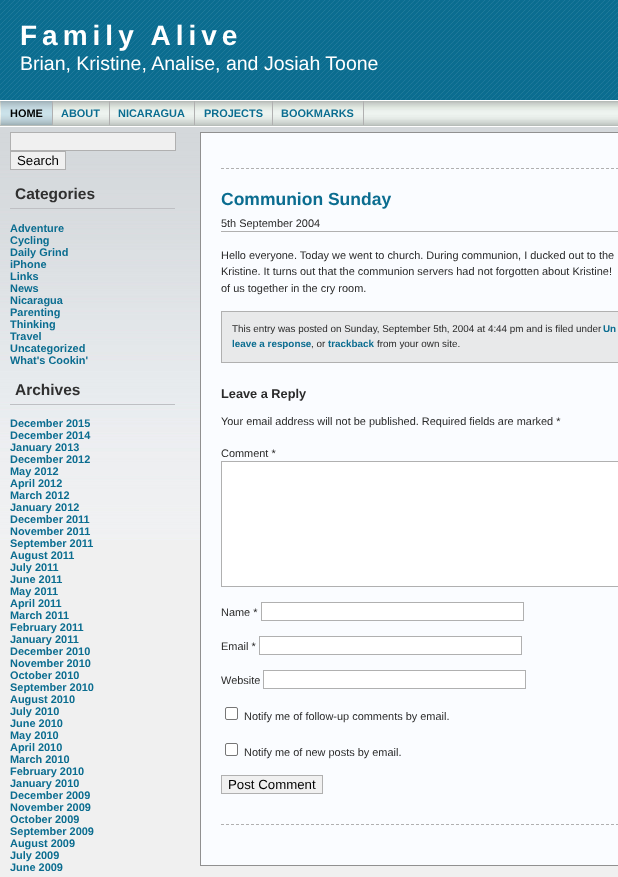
<svg xmlns="http://www.w3.org/2000/svg" width="618" height="877" viewBox="0 0 618 877">
  <rect width="100%" height="100%" fill="#f0f0f0"/>
  <image x="0" y="0" width="618" height="540" href="img1.png"/>
  <text x="20" y="45" font-family="Liberation Sans" font-size="28" font-weight="bold" letter-spacing="5" fill="#ffffff">Family Alive</text>
  <text x="20" y="70" font-family="Liberation Sans" font-size="19.5" fill="#ffffff">Brian, Kristine, Analise, and Josiah Toone</text>
  <image x="0" y="101" width="618" height="25" href="img2.png"/>
  <rect x="0" y="100" width="618" height="1" fill="#ffffff"/>
  <rect x="0" y="126" width="618" height="1" fill="#ffffff"/>
  <image x="1" y="101" width="51" height="24" href="img3.png"/>
  <text x="10" y="117" font-family="Liberation Sans" font-size="10.95" font-weight="bold" fill="#000000">HOME</text>
  <rect x="52" y="101" width="1" height="24" fill="#b0b0b0"/>
  <text x="61" y="117" font-family="Liberation Sans" font-size="10.95" font-weight="bold" fill="#0b6d90">ABOUT</text>
  <rect x="109" y="101" width="1" height="24" fill="#b0b0b0"/>
  <text x="118" y="117" font-family="Liberation Sans" font-size="10.95" font-weight="bold" fill="#0b6d90">NICARAGUA</text>
  <rect x="194" y="101" width="1" height="24" fill="#b0b0b0"/>
  <text x="204" y="117" font-family="Liberation Sans" font-size="10.95" font-weight="bold" fill="#0b6d90">PROJECTS</text>
  <rect x="272" y="101" width="1" height="24" fill="#b0b0b0"/>
  <text x="281" y="117" font-family="Liberation Sans" font-size="10.95" font-weight="bold" fill="#0b6d90">BOOKMARKS</text>
  <rect x="363" y="101" width="1" height="24" fill="#b0b0b0"/>
  <rect x="10.5" y="132.5" width="165" height="18" fill="#f0f0f0" stroke="#b0b0b0"/>
  <rect x="10.5" y="151.5" width="55" height="18" fill="#f0f0f0" stroke="#b0b0b0"/>
  <text x="17" y="165" font-family="Liberation Sans" font-size="13.25" fill="#000000">Search</text>
  <rect x="10" y="208" width="165" height="1" fill="#bebfc3"/>
  <text x="15" y="199" font-family="Liberation Sans" font-size="15.5" font-weight="bold" fill="#303030">Categories</text>
  <text x="10" y="232" font-family="Liberation Sans" font-size="10.95" font-weight="bold" fill="#0b6d90">Adventure</text>
  <text x="10" y="244" font-family="Liberation Sans" font-size="10.95" font-weight="bold" fill="#0b6d90">Cycling</text>
  <text x="10" y="256" font-family="Liberation Sans" font-size="10.95" font-weight="bold" fill="#0b6d90">Daily Grind</text>
  <text x="10" y="268" font-family="Liberation Sans" font-size="10.95" font-weight="bold" fill="#0b6d90">iPhone</text>
  <text x="10" y="280" font-family="Liberation Sans" font-size="10.95" font-weight="bold" fill="#0b6d90">Links</text>
  <text x="10" y="292" font-family="Liberation Sans" font-size="10.95" font-weight="bold" fill="#0b6d90">News</text>
  <text x="10" y="304" font-family="Liberation Sans" font-size="10.95" font-weight="bold" fill="#0b6d90">Nicaragua</text>
  <text x="10" y="316" font-family="Liberation Sans" font-size="10.95" font-weight="bold" fill="#0b6d90">Parenting</text>
  <text x="10" y="328" font-family="Liberation Sans" font-size="10.95" font-weight="bold" fill="#0b6d90">Thinking</text>
  <text x="10" y="340" font-family="Liberation Sans" font-size="10.95" font-weight="bold" fill="#0b6d90">Travel</text>
  <text x="10" y="352" font-family="Liberation Sans" font-size="10.95" font-weight="bold" fill="#0b6d90">Uncategorized</text>
  <text x="10" y="364" font-family="Liberation Sans" font-size="10.95" font-weight="bold" fill="#0b6d90">What's Cookin'</text>
  <rect x="10" y="404" width="165" height="1" fill="#bebfc3"/>
  <text x="15" y="395" font-family="Liberation Sans" font-size="15.5" font-weight="bold" fill="#303030">Archives</text>
  <text x="10" y="427" font-family="Liberation Sans" font-size="10.95" font-weight="bold" fill="#0b6d90">December 2015</text>
  <text x="10" y="439" font-family="Liberation Sans" font-size="10.95" font-weight="bold" fill="#0b6d90">December 2014</text>
  <text x="10" y="451" font-family="Liberation Sans" font-size="10.95" font-weight="bold" fill="#0b6d90">January 2013</text>
  <text x="10" y="463" font-family="Liberation Sans" font-size="10.95" font-weight="bold" fill="#0b6d90">December 2012</text>
  <text x="10" y="475" font-family="Liberation Sans" font-size="10.95" font-weight="bold" fill="#0b6d90">May 2012</text>
  <text x="10" y="487" font-family="Liberation Sans" font-size="10.95" font-weight="bold" fill="#0b6d90">April 2012</text>
  <text x="10" y="499" font-family="Liberation Sans" font-size="10.95" font-weight="bold" fill="#0b6d90">March 2012</text>
  <text x="10" y="511" font-family="Liberation Sans" font-size="10.95" font-weight="bold" fill="#0b6d90">January 2012</text>
  <text x="10" y="523" font-family="Liberation Sans" font-size="10.95" font-weight="bold" fill="#0b6d90">December 2011</text>
  <text x="10" y="535" font-family="Liberation Sans" font-size="10.95" font-weight="bold" fill="#0b6d90">November 2011</text>
  <text x="10" y="547" font-family="Liberation Sans" font-size="10.95" font-weight="bold" fill="#0b6d90">September 2011</text>
  <text x="10" y="559" font-family="Liberation Sans" font-size="10.95" font-weight="bold" fill="#0b6d90">August 2011</text>
  <text x="10" y="571" font-family="Liberation Sans" font-size="10.95" font-weight="bold" fill="#0b6d90">July 2011</text>
  <text x="10" y="583" font-family="Liberation Sans" font-size="10.95" font-weight="bold" fill="#0b6d90">June 2011</text>
  <text x="10" y="595" font-family="Liberation Sans" font-size="10.95" font-weight="bold" fill="#0b6d90">May 2011</text>
  <text x="10" y="607" font-family="Liberation Sans" font-size="10.95" font-weight="bold" fill="#0b6d90">April 2011</text>
  <text x="10" y="619" font-family="Liberation Sans" font-size="10.95" font-weight="bold" fill="#0b6d90">March 2011</text>
  <text x="10" y="631" font-family="Liberation Sans" font-size="10.95" font-weight="bold" fill="#0b6d90">February 2011</text>
  <text x="10" y="643" font-family="Liberation Sans" font-size="10.95" font-weight="bold" fill="#0b6d90">January 2011</text>
  <text x="10" y="655" font-family="Liberation Sans" font-size="10.95" font-weight="bold" fill="#0b6d90">December 2010</text>
  <text x="10" y="667" font-family="Liberation Sans" font-size="10.95" font-weight="bold" fill="#0b6d90">November 2010</text>
  <text x="10" y="679" font-family="Liberation Sans" font-size="10.95" font-weight="bold" fill="#0b6d90">October 2010</text>
  <text x="10" y="691" font-family="Liberation Sans" font-size="10.95" font-weight="bold" fill="#0b6d90">September 2010</text>
  <text x="10" y="703" font-family="Liberation Sans" font-size="10.95" font-weight="bold" fill="#0b6d90">August 2010</text>
  <text x="10" y="715" font-family="Liberation Sans" font-size="10.95" font-weight="bold" fill="#0b6d90">July 2010</text>
  <text x="10" y="727" font-family="Liberation Sans" font-size="10.95" font-weight="bold" fill="#0b6d90">June 2010</text>
  <text x="10" y="739" font-family="Liberation Sans" font-size="10.95" font-weight="bold" fill="#0b6d90">May 2010</text>
  <text x="10" y="751" font-family="Liberation Sans" font-size="10.95" font-weight="bold" fill="#0b6d90">April 2010</text>
  <text x="10" y="763" font-family="Liberation Sans" font-size="10.95" font-weight="bold" fill="#0b6d90">March 2010</text>
  <text x="10" y="775" font-family="Liberation Sans" font-size="10.95" font-weight="bold" fill="#0b6d90">February 2010</text>
  <text x="10" y="787" font-family="Liberation Sans" font-size="10.95" font-weight="bold" fill="#0b6d90">January 2010</text>
  <text x="10" y="799" font-family="Liberation Sans" font-size="10.95" font-weight="bold" fill="#0b6d90">December 2009</text>
  <text x="10" y="811" font-family="Liberation Sans" font-size="10.95" font-weight="bold" fill="#0b6d90">November 2009</text>
  <text x="10" y="823" font-family="Liberation Sans" font-size="10.95" font-weight="bold" fill="#0b6d90">October 2009</text>
  <text x="10" y="835" font-family="Liberation Sans" font-size="10.95" font-weight="bold" fill="#0b6d90">September 2009</text>
  <text x="10" y="847" font-family="Liberation Sans" font-size="10.95" font-weight="bold" fill="#0b6d90">August 2009</text>
  <text x="10" y="859" font-family="Liberation Sans" font-size="10.95" font-weight="bold" fill="#0b6d90">July 2009</text>
  <text x="10" y="871" font-family="Liberation Sans" font-size="10.95" font-weight="bold" fill="#0b6d90">June 2009</text>
  <rect x="200.5" y="132.5" width="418" height="733" fill="#fafcff" stroke="#909090"/>
  <path d="M221 168.5H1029" fill="none" stroke="#b0b0b0" stroke-dasharray="3 2"/>
  <text x="221" y="205" font-family="Liberation Sans" font-size="17.5" font-weight="bold" fill="#0b6d90">Communion Sunday</text>
  <rect x="221" y="231" width="397" height="1" fill="#b0b0b0"/>
  <text x="221" y="227" font-family="Liberation Sans" font-size="10.95" fill="#2a2a2a">5th September 2004</text>
  <text x="221" y="259" font-family="Liberation Sans" font-size="10.95" fill="#2a2a2a">Hello everyone. Today we went to church. During communion, I ducked out to the</text>
  <text x="221" y="275" font-family="Liberation Sans" font-size="10.95" fill="#2a2a2a">Kristine. It turns out that the communion servers had not forgotten about Kristine!</text>
  <text x="221" y="292" font-family="Liberation Sans" font-size="10.95" fill="#2a2a2a">of us together in the cry room.</text>
  <rect x="221.5" y="311.5" width="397" height="51" fill="#e8e9ea" stroke="#b0b0b0"/>
  <text x="232" y="332" font-family="Liberation Sans" font-size="9.85" fill="#2a2a2a">This entry was posted on Sunday, September 5th, 2004 at 4:44 pm and is filed under</text>
  <text x="603" y="332" font-family="Liberation Sans" font-size="9.85" font-weight="bold" fill="#0b6d90">Un</text>
  <text x="232" y="347" font-family="Liberation Sans" font-size="9.85" font-weight="bold" fill="#0b6d90">leave a response</text>
  <text x="311" y="347" font-family="Liberation Sans" font-size="9.85" fill="#2a2a2a">, or</text>
  <text x="328" y="347" font-family="Liberation Sans" font-size="9.85" font-weight="bold" fill="#0b6d90">trackback</text>
  <text x="377" y="347" font-family="Liberation Sans" font-size="9.85" fill="#2a2a2a">from your own site.</text>
  <text x="221" y="398" font-family="Liberation Sans" font-size="12.75" font-weight="bold" fill="#2a2a2a">Leave a Reply</text>
  <text x="221" y="425" font-family="Liberation Sans" font-size="10.95" fill="#2a2a2a">Your email address will not be published. Required fields are marked *</text>
  <text x="221" y="457" font-family="Liberation Sans" font-size="10.95" fill="#2a2a2a">Comment *</text>
  <rect x="221.5" y="461.5" width="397" height="125" fill="#ffffff" stroke="#b0b0b0"/>
  <text x="221" y="616" font-family="Liberation Sans" font-size="10.95" fill="#2a2a2a">Name *</text>
  <rect x="261.5" y="602.5" width="262" height="18" fill="#ffffff" stroke="#b0b0b0"/>
  <text x="221" y="650" font-family="Liberation Sans" font-size="10.95" fill="#2a2a2a">Email *</text>
  <rect x="259.5" y="636.5" width="262" height="18" fill="#ffffff" stroke="#b0b0b0"/>
  <text x="221" y="684" font-family="Liberation Sans" font-size="10.95" fill="#2a2a2a">Website</text>
  <rect x="263.5" y="670.5" width="262" height="18" fill="#ffffff" stroke="#b0b0b0"/>
  <rect x="225.5" y="707.5" width="12" height="12" rx="1.5" fill="#ffffff" stroke="#767676"/>
  <text x="244" y="720" font-family="Liberation Sans" font-size="10.95" fill="#2a2a2a">Notify me of follow-up comments by email.</text>
  <rect x="225.5" y="743.5" width="12" height="12" rx="1.5" fill="#ffffff" stroke="#767676"/>
  <text x="244" y="756" font-family="Liberation Sans" font-size="10.95" fill="#2a2a2a">Notify me of new posts by email.</text>
  <rect x="221.5" y="775.5" width="101" height="18" fill="#f0f0f0" stroke="#b0b0b0"/>
  <text x="228" y="789" font-family="Liberation Sans" font-size="13.25" fill="#000000">Post Comment</text>
  <path d="M221 824.5H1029" fill="none" stroke="#b0b0b0" stroke-dasharray="3 2"/>
</svg>
